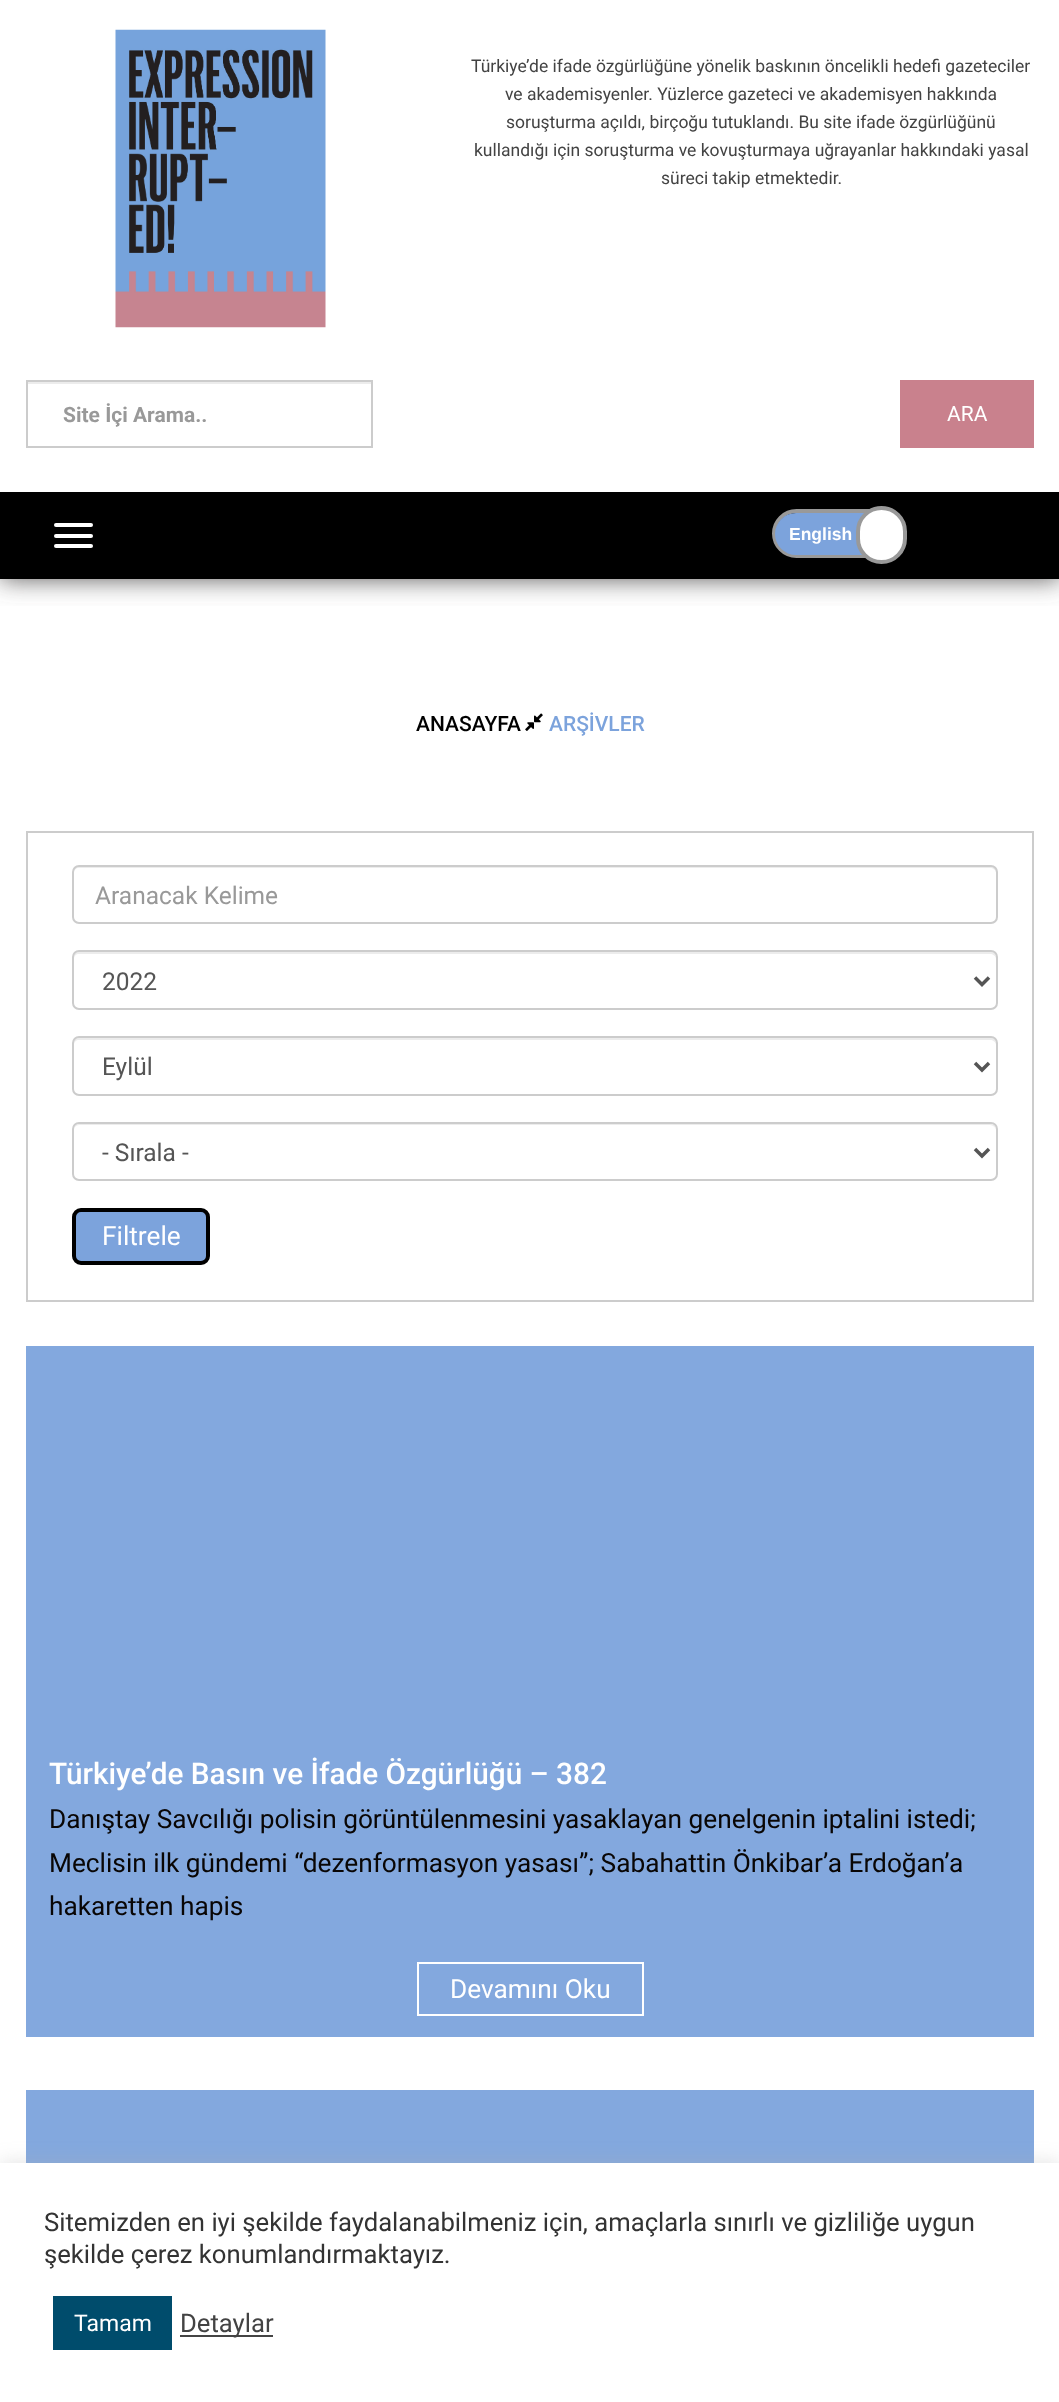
<svg xmlns="http://www.w3.org/2000/svg" width="1059" height="2402" viewBox="0 0 1059 2402">
  <defs>
    <clipPath id="clip1"><rect x="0" y="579" width="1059" height="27"/></clipPath>
    <filter id="blur1" x="-50%" y="-200%" width="200%" height="500%"><feGaussianBlur stdDeviation="13"/></filter>
    <filter id="blur2" x="-50%" y="-200%" width="200%" height="500%"><feGaussianBlur stdDeviation="9"/></filter>
  </defs>
  <rect width="100%" height="100%" fill="#ffffff"/>
  <g clip-path="url(#clip1)">
    <rect x="0" y="0" width="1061" height="579" fill="#5a5858" filter="url(#blur1)"/>
  </g>
  <image x="115" y="29" width="211" height="299" href="img1.png"/>
  <text x="471" y="72" font-family="Roboto" font-size="17.5" fill="#434343">Türkiye’de ifade özgürlüğüne yönelik baskının öncelikli hedefi gazeteciler</text>
  <text x="505" y="100" font-family="Roboto" font-size="17.5" fill="#434343">ve akademisyenler. Yüzlerce gazeteci ve akademisyen hakkında</text>
  <text x="506" y="128" font-family="Roboto" font-size="17.5" fill="#434343">soruşturma açıldı, birçoğu tutuklandı. Bu site ifade özgürlüğünü</text>
  <text x="474" y="156" font-family="Roboto" font-size="17.5" fill="#434343">kullandığı için soruşturma ve kovuşturmaya uğrayanlar hakkındaki yasal</text>
  <text x="661" y="184" font-family="Roboto" font-size="17.5" fill="#434343">süreci takip etmektedir.</text>
  <rect x="28" y="382" width="343" height="2" fill="#ececec"/>
  <rect x="27" y="381" width="345" height="66" fill="none" stroke="#cccccc" stroke-width="2"/>
  <text x="63" y="422" font-family="Roboto" font-size="21" font-weight="bold" fill="#999999">Site İçi Arama..</text>
  <rect x="900" y="380" width="134" height="68" fill="#c9818d"/>
  <text x="947" y="421" font-family="Roboto" font-size="21" fill="#ffffff">ARA</text>
  <rect x="0" y="492" width="1059" height="87" fill="#000000"/>
  <rect x="54" y="523" width="39" height="4" rx="2" fill="#ffffff"/>
  <rect x="54" y="534" width="39" height="4" rx="2" fill="#ffffff"/>
  <rect x="54" y="544" width="39" height="4" rx="2" fill="#ffffff"/>
  <rect x="774" y="511" width="125" height="45" rx="22.5" fill="none" stroke="#999999" stroke-width="4"/>
  <rect x="775" y="513" width="123" height="42" rx="21" fill="#7ca3dc"/>
  <text x="789" y="540" font-family="Liberation Sans" font-size="17.5" font-weight="bold" fill="#ffffff">English</text>
  <rect x="858" y="508" width="47" height="54" rx="23.5" fill="#ffffff" stroke="#999999" stroke-width="4"/>
  <text x="416" y="731" font-family="Roboto" font-size="21" font-weight="500" fill="#000000">ANASAYFA</text>
  <image x="525" y="713" width="18" height="18" href="img2.png"/>
  <text x="549" y="731" font-family="Roboto" font-size="21" font-weight="500" fill="#7ca3dc">ARŞİVLER</text>
  <rect x="27" y="832" width="1006" height="469" fill="none" stroke="#cccccc" stroke-width="2"/>
  <path d="M79 868H990C993 868 996 870 996 873V871C996 868 994 866 991 866H79C76 866 74 868 74 871V873C74 870 76 868 79 868Z" fill="#ececec"/>
  <rect x="73" y="866" width="924" height="57" rx="6" fill="none" stroke="#cccccc" stroke-width="2"/>
  <text x="95" y="904" font-family="Roboto" font-size="24.5" fill="#999999">Aranacak Kelime</text>
  <path d="M79 954H990C993 954 996 956 996 959V957C996 954 994 952 991 952H79C76 952 74 954 74 957V959C74 956 76 954 79 954Z" fill="#ececec"/>
  <rect x="73" y="951" width="924" height="58" rx="6" fill="none" stroke="#cccccc" stroke-width="2"/>
  <path d="M975 977.5L982 984.5L989 977.5" fill="none" stroke="#555555" stroke-width="3.5"/>
  <text x="102" y="990" font-family="Roboto" font-size="24.5" fill="#555555">2022</text>
  <path d="M79 1040H990C993 1040 996 1042 996 1045V1043C996 1040 994 1038 991 1038H79C76 1038 74 1040 74 1043V1045C74 1042 76 1040 79 1040Z" fill="#ececec"/>
  <rect x="73" y="1037" width="924" height="58" rx="6" fill="none" stroke="#cccccc" stroke-width="2"/>
  <path d="M975 1063L982 1070L989 1063" fill="none" stroke="#555555" stroke-width="3.5"/>
  <text x="102" y="1075" font-family="Roboto" font-size="24.5" fill="#555555">Eylül</text>
  <path d="M79 1125H990C993 1125 996 1128 996 1130C996 1127 994 1124 991 1124H79C76 1124 74 1127 74 1130C74 1128 76 1125 79 1125Z" fill="#ececec"/>
  <rect x="73" y="1123" width="924" height="57" rx="6" fill="none" stroke="#cccccc" stroke-width="2"/>
  <path d="M975 1149L982 1156L989 1149" fill="none" stroke="#555555" stroke-width="3.5"/>
  <text x="102" y="1161" font-family="Roboto" font-size="24.5" fill="#555555">- Sırala -</text>
  <rect x="74" y="1210" width="134" height="53" rx="7" fill="#7ca3dc" stroke="#000000" stroke-width="4"/>
  <text x="102" y="1245" font-family="Roboto" font-size="26.25" fill="#ffffff">Filtrele</text>
  <rect x="26" y="1346" width="1008" height="691" fill="#83a8de"/>
  <text x="49" y="1784" font-family="Roboto" font-size="29.75" font-weight="500" fill="#ffffff">Türkiye’de Basın ve İfade Özgürlüğü – 382</text>
  <text x="49" y="1828" font-family="Roboto" font-size="26.25" fill="#090605">Danıştay Savcılığı polisin görüntülenmesini yasaklayan genelgenin iptalini istedi;</text>
  <text x="49" y="1872" font-family="Roboto" font-size="26.25" fill="#090605">Meclisin ilk gündemi “dezenformasyon yasası”; Sabahattin Önkibar’a Erdoğan’a</text>
  <text x="49" y="1915" font-family="Roboto" font-size="26.25" fill="#090605">hakaretten hapis</text>
  <rect x="418" y="1963" width="225" height="52" fill="none" stroke="#ffffff" stroke-width="2"/>
  <text x="450" y="1998" font-family="Roboto" font-size="26.25" fill="#ffffff">Devamını Oku</text>
  <rect x="26" y="2090" width="1008" height="73" fill="#83a8de"/>
  <rect x="0" y="2161" width="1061" height="240" fill="#acabab" fill-opacity="0.3" filter="url(#blur2)"/>
  <rect x="0" y="2163" width="1059" height="239" fill="#ffffff"/>
  <text x="44" y="2231" font-family="Roboto" font-size="25.65" fill="#333333">Sitemizden en iyi şekilde faydalanabilmeniz için, amaçlarla sınırlı ve gizliliğe uygun</text>
  <text x="44" y="2263" font-family="Roboto" font-size="25.65" fill="#333333">şekilde çerez konumlandırmaktayız.</text>
  <rect x="53" y="2296" width="119" height="54" fill="#004c6c"/>
  <text x="74" y="2331" font-family="Roboto" font-size="23" fill="#ffffff">Tamam</text>
  <rect x="180" y="2335" width="93" height="2" fill="#444444"/>
  <text x="180" y="2332" font-family="Roboto" font-size="25.65" fill="#434343">Detaylar</text>
</svg>
